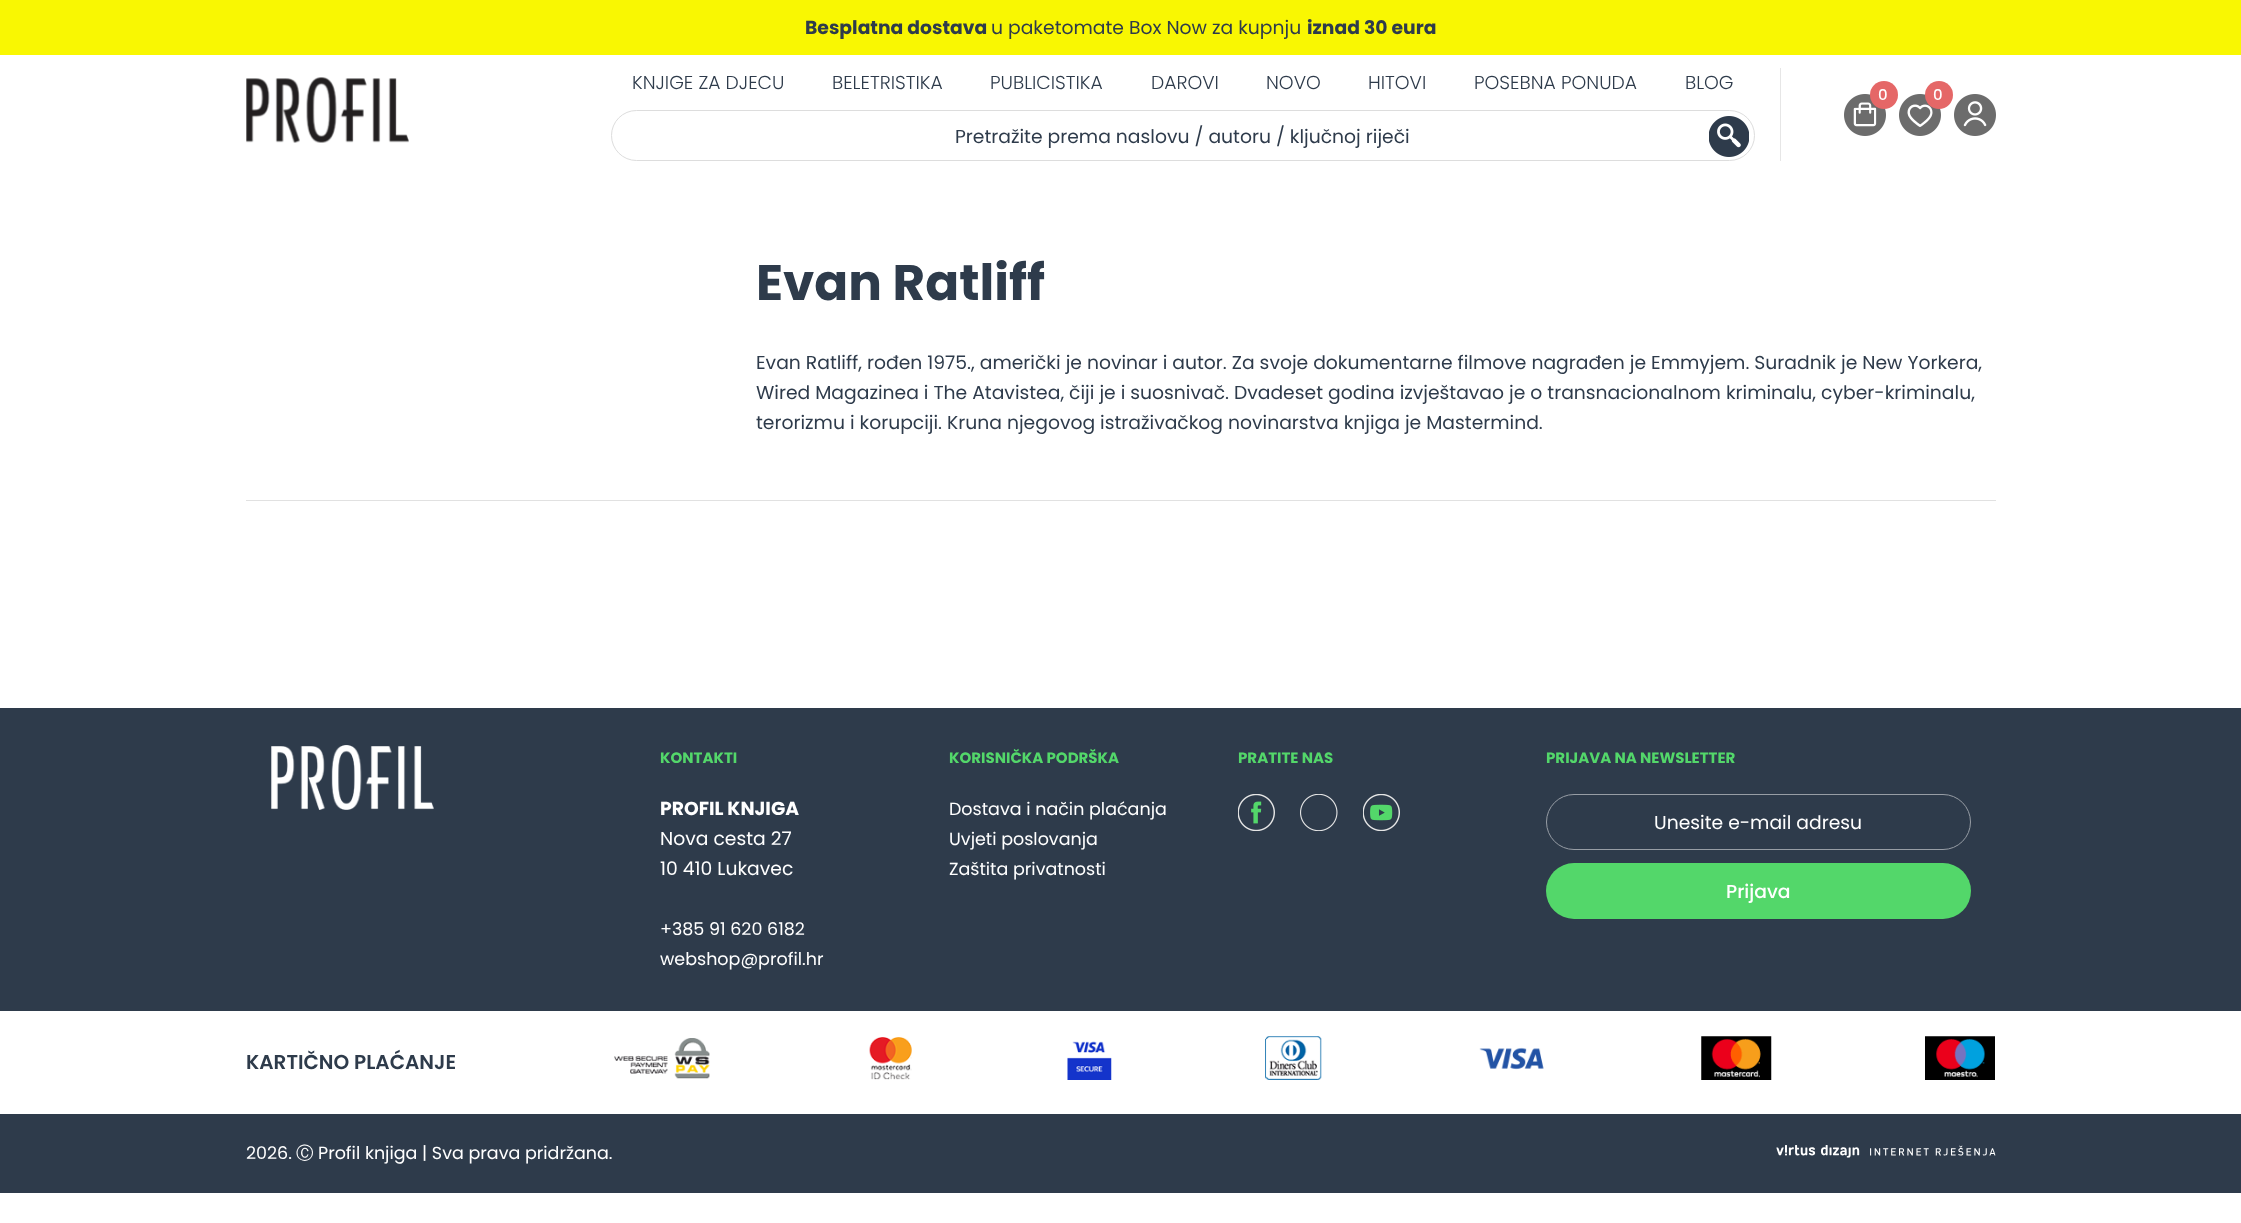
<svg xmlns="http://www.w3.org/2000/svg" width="2241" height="1223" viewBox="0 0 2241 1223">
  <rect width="100%" height="100%" fill="#ffffff"/>
  <rect x="0" y="0" width="2241" height="55" fill="#f9f702"/>
  <text x="805" y="34" font-family="Poppins" font-size="18.75" font-weight="bold" fill="#2e3b4b">Besplatna dostava</text>
  <text x="991" y="34" font-family="Poppins" font-size="18.75" fill="#2e3b4b">u paketomate Box Now za kupnju</text>
  <text x="1307" y="34" font-family="Poppins" font-size="18.75" font-weight="bold" fill="#2e3b4b">iznad 30 eura</text>
  <image x="246" y="77" width="163" height="66" href="img1.png"/>
  <rect x="1780" y="68" width="1" height="93" fill="#e6e6e6"/>
  <text x="632" y="89" font-family="Poppins" font-size="18.75" font-weight="300" fill="#2e3b4b">KNJIGE ZA DJECU</text>
  <text x="832" y="89" font-family="Poppins" font-size="18.75" font-weight="300" fill="#2e3b4b">BELETRISTIKA</text>
  <text x="990" y="89" font-family="Poppins" font-size="18.75" font-weight="300" fill="#2e3b4b">PUBLICISTIKA</text>
  <text x="1151" y="89" font-family="Poppins" font-size="18.75" font-weight="300" fill="#2e3b4b">DAROVI</text>
  <text x="1266" y="89" font-family="Poppins" font-size="18.75" font-weight="300" fill="#2e3b4b">NOVO</text>
  <text x="1368" y="89" font-family="Poppins" font-size="18.75" font-weight="300" fill="#2e3b4b">HITOVI</text>
  <text x="1474" y="89" font-family="Poppins" font-size="18.75" font-weight="300" fill="#2e3b4b">POSEBNA PONUDA</text>
  <text x="1685" y="89" font-family="Poppins" font-size="18.75" font-weight="300" fill="#2e3b4b">BLOG</text>
  <rect x="611.5" y="110.5" width="1143" height="50" rx="25" fill="none" stroke="#dddddd"/>
  <text x="955" y="143" font-family="Poppins" font-size="18.75" fill="#2e3b4b">Pretražite prema naslovu / autoru / ključnoj riječi</text>
  <image x="1709" y="116" width="40" height="41" href="img2.png"/>
  <image x="1844" y="94" width="42" height="42" href="img3.png"/>
  <circle cx="1884" cy="95" r="14" fill="#e56767"/>
  <text x="1878" y="100" font-family="Poppins" font-size="15" font-weight="500" fill="#ffffff">0</text>
  <image x="1899" y="94" width="42" height="42" href="img4.png"/>
  <circle cx="1939" cy="95" r="14" fill="#e56767"/>
  <text x="1933" y="100" font-family="Poppins" font-size="15" font-weight="500" fill="#ffffff">0</text>
  <image x="1954" y="94" width="42" height="42" href="img5.png"/>
  <text x="756" y="300" font-family="Poppins" font-size="50" font-weight="bold" fill="#2e3b4b">Evan Ratliff</text>
  <text x="756" y="369" font-family="Poppins" font-size="18.75" fill="#2e3b4b">Evan Ratliff, rođen 1975., američki je novinar i autor. Za svoje dokumentarne filmove nagrađen je Emmyjem. Suradnik je New Yorkera,</text>
  <text x="756" y="399" font-family="Poppins" font-size="18.75" fill="#2e3b4b">Wired Magazinea i The Atavistea, čiji je i suosnivač. Dvadeset godina izvještavao je o transnacionalnom kriminalu, cyber-kriminalu,</text>
  <text x="756" y="429" font-family="Poppins" font-size="18.75" fill="#2e3b4b">terorizmu i korupciji. Kruna njegovog istraživačkog novinarstva knjiga je Mastermind.</text>
  <rect x="246" y="500" width="1750" height="1" fill="#e1e1e1"/>
  <rect x="0" y="708" width="2241" height="303" fill="#2e3b4b"/>
  <image x="271" y="745" width="163" height="65" href="img6.png"/>
  <text x="660" y="763" font-family="Poppins" font-size="15" font-weight="bold" fill="#53d76a">KONTAKTI</text>
  <text x="660" y="815" font-family="Poppins" font-size="18.75" font-weight="bold" fill="#ffffff">PROFIL KNJIGA</text>
  <text x="660" y="845" font-family="Poppins" font-size="18.75" fill="#ffffff">Nova cesta 27</text>
  <text x="660" y="875" font-family="Poppins" font-size="18.75" fill="#ffffff">10 410 Lukavec</text>
  <text x="660" y="935" font-family="Poppins" font-size="17.5" fill="#ffffff">+385 91 620 6182</text>
  <text x="660" y="965" font-family="Poppins" font-size="17.5" fill="#ffffff">webshop@profil.hr</text>
  <text x="949" y="763" font-family="Poppins" font-size="15" font-weight="bold" fill="#53d76a">KORISNIČKA PODRŠKA</text>
  <text x="949" y="815" font-family="Poppins" font-size="17.5" fill="#ffffff">Dostava i način plaćanja</text>
  <text x="949" y="845" font-family="Poppins" font-size="17.5" fill="#ffffff">Uvjeti poslovanja</text>
  <text x="949" y="875" font-family="Poppins" font-size="17.5" fill="#ffffff">Zaštita privatnosti</text>
  <text x="1238" y="763" font-family="Poppins" font-size="15" font-weight="bold" fill="#53d76a">PRATITE NAS</text>
  <image x="1238" y="794" width="37" height="37" href="img7.png"/>
  <image x="1300" y="794" width="38" height="37" href="img8.png"/>
  <image x="1363" y="794" width="37" height="37" href="img9.png"/>
  <text x="1546" y="763" font-family="Poppins" font-size="15" font-weight="bold" fill="#53d76a">PRIJAVA NA NEWSLETTER</text>
  <rect x="1546.5" y="794.5" width="424" height="55" rx="27.5" fill="none" stroke="#979da5"/>
  <text x="1654" y="829" font-family="Poppins" font-size="18.75" fill="#ffffff">Unesite e-mail adresu</text>
  <rect x="1546" y="863" width="425" height="56" rx="28" fill="#53d76a"/>
  <text x="1726" y="898" font-family="Poppins" font-size="18.75" font-weight="500" fill="#ffffff">Prijava</text>
  <text x="246" y="1069" font-family="Poppins" font-size="20" font-weight="600" fill="#2e3b4b">KARTIČNO PLAĆANJE</text>
  <image x="614" y="1038" width="96" height="41" href="img10.png"/>
  <image x="869" y="1037" width="43" height="43" href="img11.png"/>
  <image x="1067" y="1041" width="45" height="39" href="img12.png"/>
  <image x="1265" y="1036" width="57" height="44" href="img13.png"/>
  <image x="1479" y="1047" width="65" height="23" href="img14.png"/>
  <image x="1701" y="1036" width="71" height="44" href="img15.png"/>
  <image x="1925" y="1036" width="70" height="44" href="img16.png"/>
  <rect x="0" y="1114" width="2241" height="79" fill="#2e3b4b"/>
  <text x="246" y="1159" font-family="Poppins" font-size="17.5" fill="#ffffff">2026.</text>
  <text x="296" y="1159" font-family="WenQuanYi Zen Hei" font-size="17.5" font-weight="500" fill="#ffffff">Ⓒ</text>
  <text x="318" y="1159" font-family="Poppins" font-size="17.5" fill="#ffffff">Profil knjiga | Sva prava pridržana.</text>
  <image x="1776" y="1145" width="220" height="13" href="img17.png"/>
</svg>
